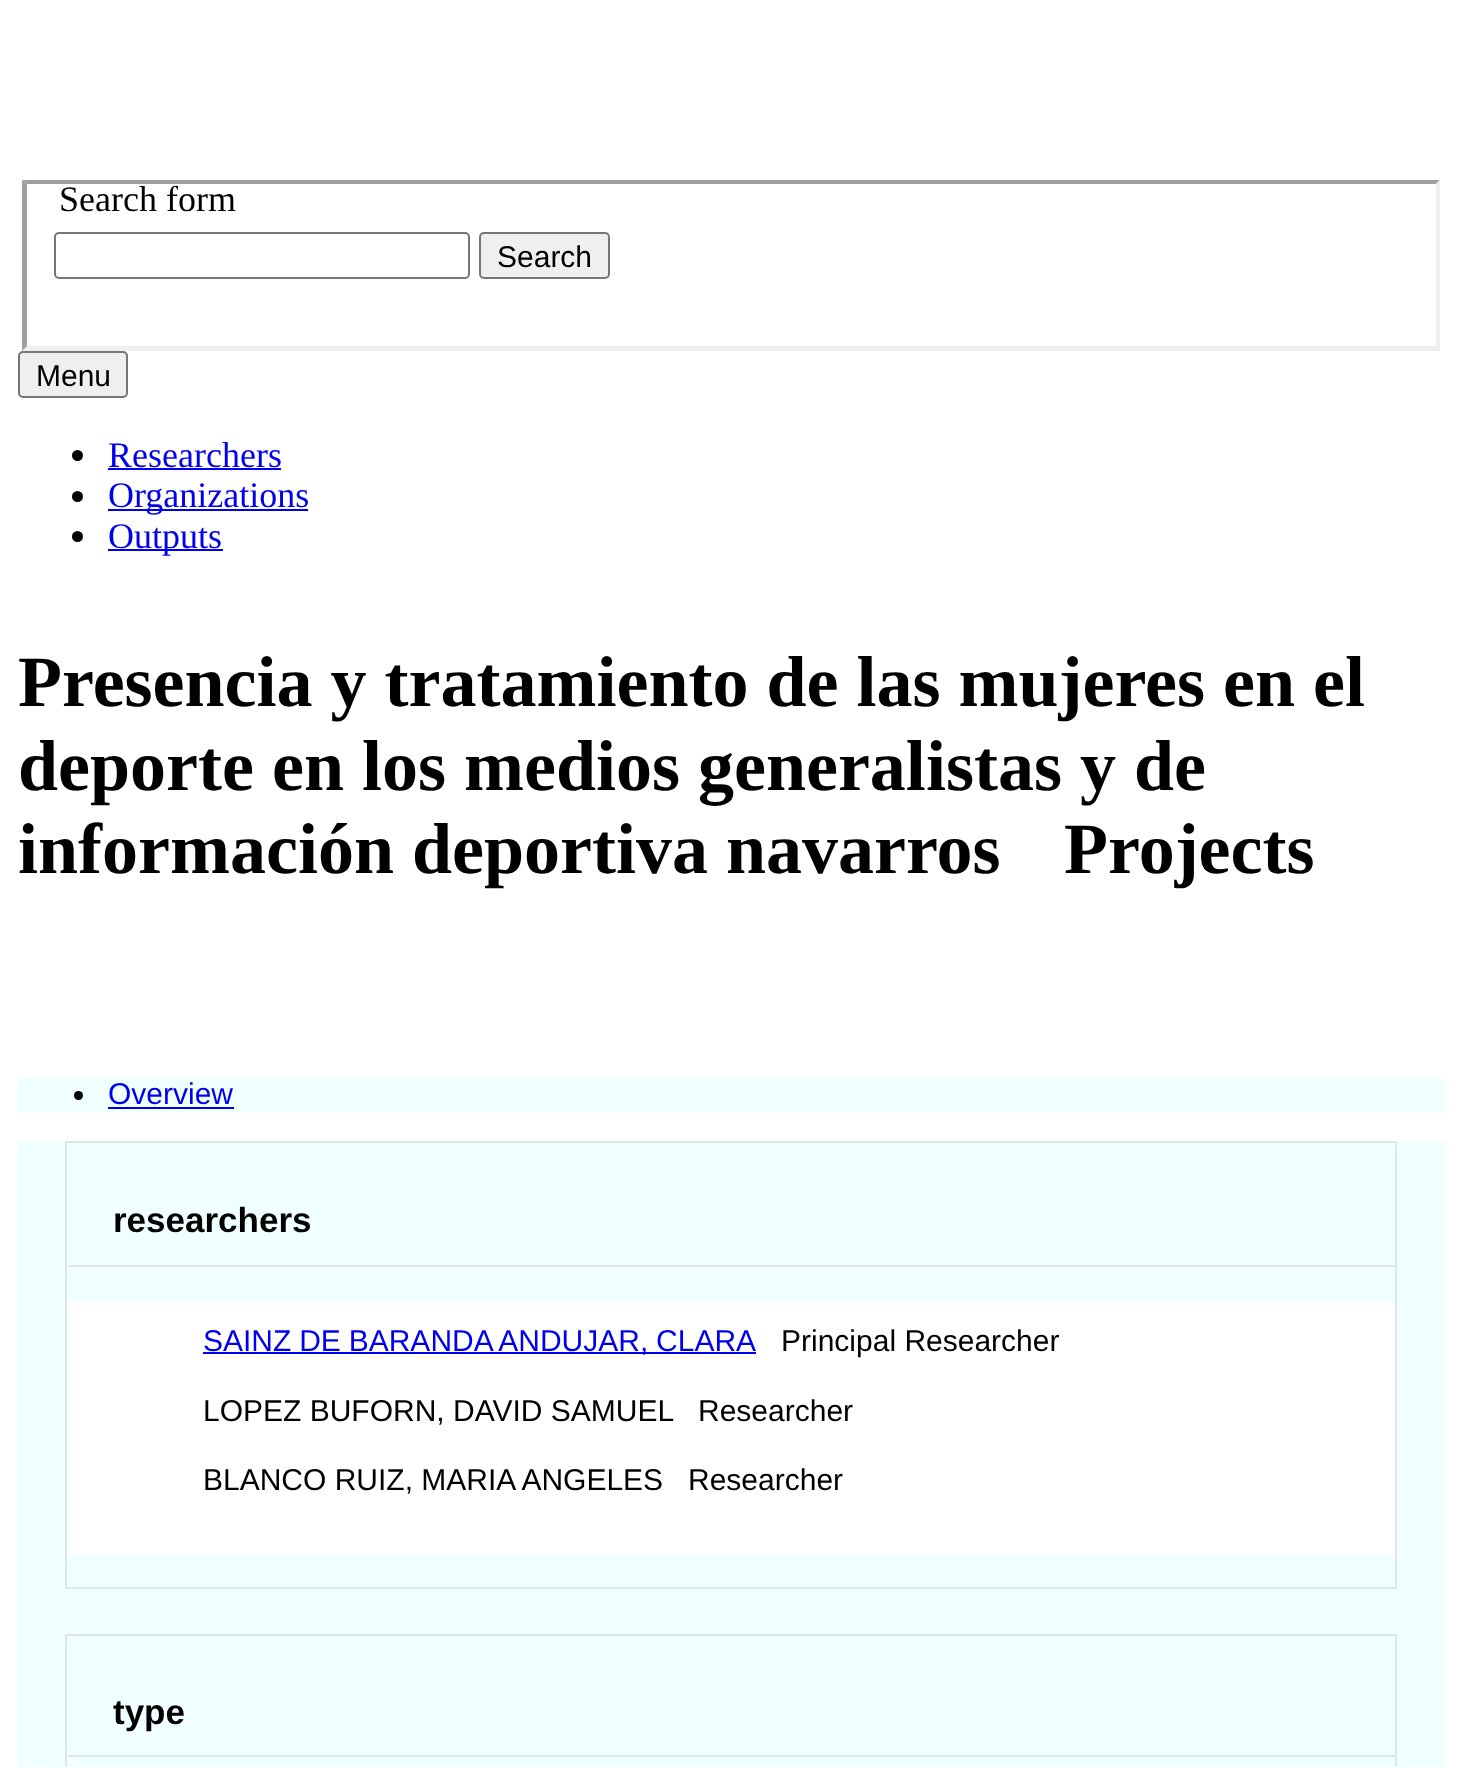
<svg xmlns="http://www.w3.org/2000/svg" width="1461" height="1767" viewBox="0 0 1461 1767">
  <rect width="100%" height="100%" fill="#ffffff"/>
  <path d="M22 180H1440L1436 184H27Z" fill="#9f9f9f"/>
  <path d="M1440 180V351L1436 346V184Z" fill="#efefef"/>
  <path d="M1440 351H22L27 346H1436Z" fill="#efefef"/>
  <path d="M22 351V180L27 184V346Z" fill="#9f9f9f"/>
  <text x="59" y="211" font-family="Liberation Serif" font-size="36" fill="#000000">Search form</text>
  <rect x="55" y="233" width="414" height="45" rx="4" fill="none" stroke="#767676" stroke-width="2"/>
  <rect x="480" y="233" width="129" height="45" rx="4" fill="#efefef" stroke="#767676" stroke-width="2"/>
  <text x="497" y="267" font-family="Liberation Sans" font-size="30" fill="#000000">Search</text>
  <rect x="19" y="352" width="108" height="45" rx="4" fill="#efefef" stroke="#767676" stroke-width="2"/>
  <text x="36" y="386" font-family="Liberation Sans" font-size="30" fill="#000000">Menu</text>
  <circle cx="77.5" cy="455.5" r="5.5" fill="#000000"/>
  <text x="108" y="467" font-family="Liberation Serif" font-size="36" fill="#0000ee">Researchers</text>
  <rect x="108" y="468" width="173" height="2" fill="#0000ee"/>
  <circle cx="77.5" cy="496.5" r="5.5" fill="#000000"/>
  <rect x="108" y="509" width="200" height="2" fill="#0000ee"/>
  <text x="108" y="507" font-family="Liberation Serif" font-size="36" fill="#0000ee">Organizations</text>
  <circle cx="77.5" cy="536.5" r="5.5" fill="#000000"/>
  <rect x="108" y="549" width="115" height="2" fill="#0000ee"/>
  <text x="108" y="548" font-family="Liberation Serif" font-size="36" fill="#0000ee">Outputs</text>
  <text x="18" y="706" font-family="Liberation Serif" font-size="72" font-weight="bold" fill="#000000">Presencia y tratamiento de las mujeres en el</text>
  <text x="18" y="790" font-family="Liberation Serif" font-size="72" font-weight="bold" fill="#000000">deporte en los medios generalistas y de</text>
  <text x="18" y="873" font-family="Liberation Serif" font-size="72" font-weight="bold" fill="#000000">información deportiva navarros</text>
  <text x="1064" y="873" font-family="Liberation Serif" font-size="72" font-weight="bold" fill="#000000">Projects</text>
  <rect x="18" y="1078" width="1427" height="34" fill="#f0ffff"/>
  <circle cx="78.5" cy="1095.5" r="4.5" fill="#000000"/>
  <text x="108" y="1104" font-family="Liberation Sans" font-size="30" fill="#0000ee">Overview</text>
  <rect x="108" y="1107" width="126" height="2" fill="#0000ee"/>
  <rect x="18" y="1141" width="1427" height="626" fill="#f0ffff"/>
  <rect x="66" y="1142" width="1330" height="446" fill="none" stroke="#dfe6e5" stroke-width="2"/>
  <rect x="68" y="1265" width="1327" height="2" fill="#dfe6e5"/>
  <text x="113" y="1232" font-family="Liberation Sans" font-size="35" font-weight="bold" fill="#000000">researchers</text>
  <rect x="68" y="1301" width="1327" height="254" fill="#ffffff"/>
  <rect x="203" y="1352" width="553" height="2" fill="#0000ee"/>
  <text x="203" y="1351" word-spacing="-0.5" font-family="Liberation Sans" font-size="30" fill="#0000ee">SAINZ DE BARANDA ANDUJAR, CLARA</text>
  <text x="781" y="1351" font-family="Liberation Sans" font-size="30" fill="#000000">Principal Researcher</text>
  <text x="203" y="1421" font-family="Liberation Sans" font-size="30" fill="#000000">LOPEZ BUFORN, DAVID SAMUEL</text>
  <text x="698" y="1421" font-family="Liberation Sans" font-size="30" fill="#000000">Researcher</text>
  <text x="203" y="1490" font-family="Liberation Sans" font-size="30" fill="#000000">BLANCO RUIZ, MARIA ANGELES</text>
  <text x="688" y="1490" font-family="Liberation Sans" font-size="30" fill="#000000">Researcher</text>
  <rect x="66" y="1635" width="1330" height="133" fill="none" stroke="#dfe6e5" stroke-width="2"/>
  <rect x="68" y="1755" width="1327" height="2" fill="#dfe6e5"/>
  <text x="113" y="1724" font-family="Liberation Sans" font-size="35" font-weight="bold" fill="#000000">type</text>
</svg>
